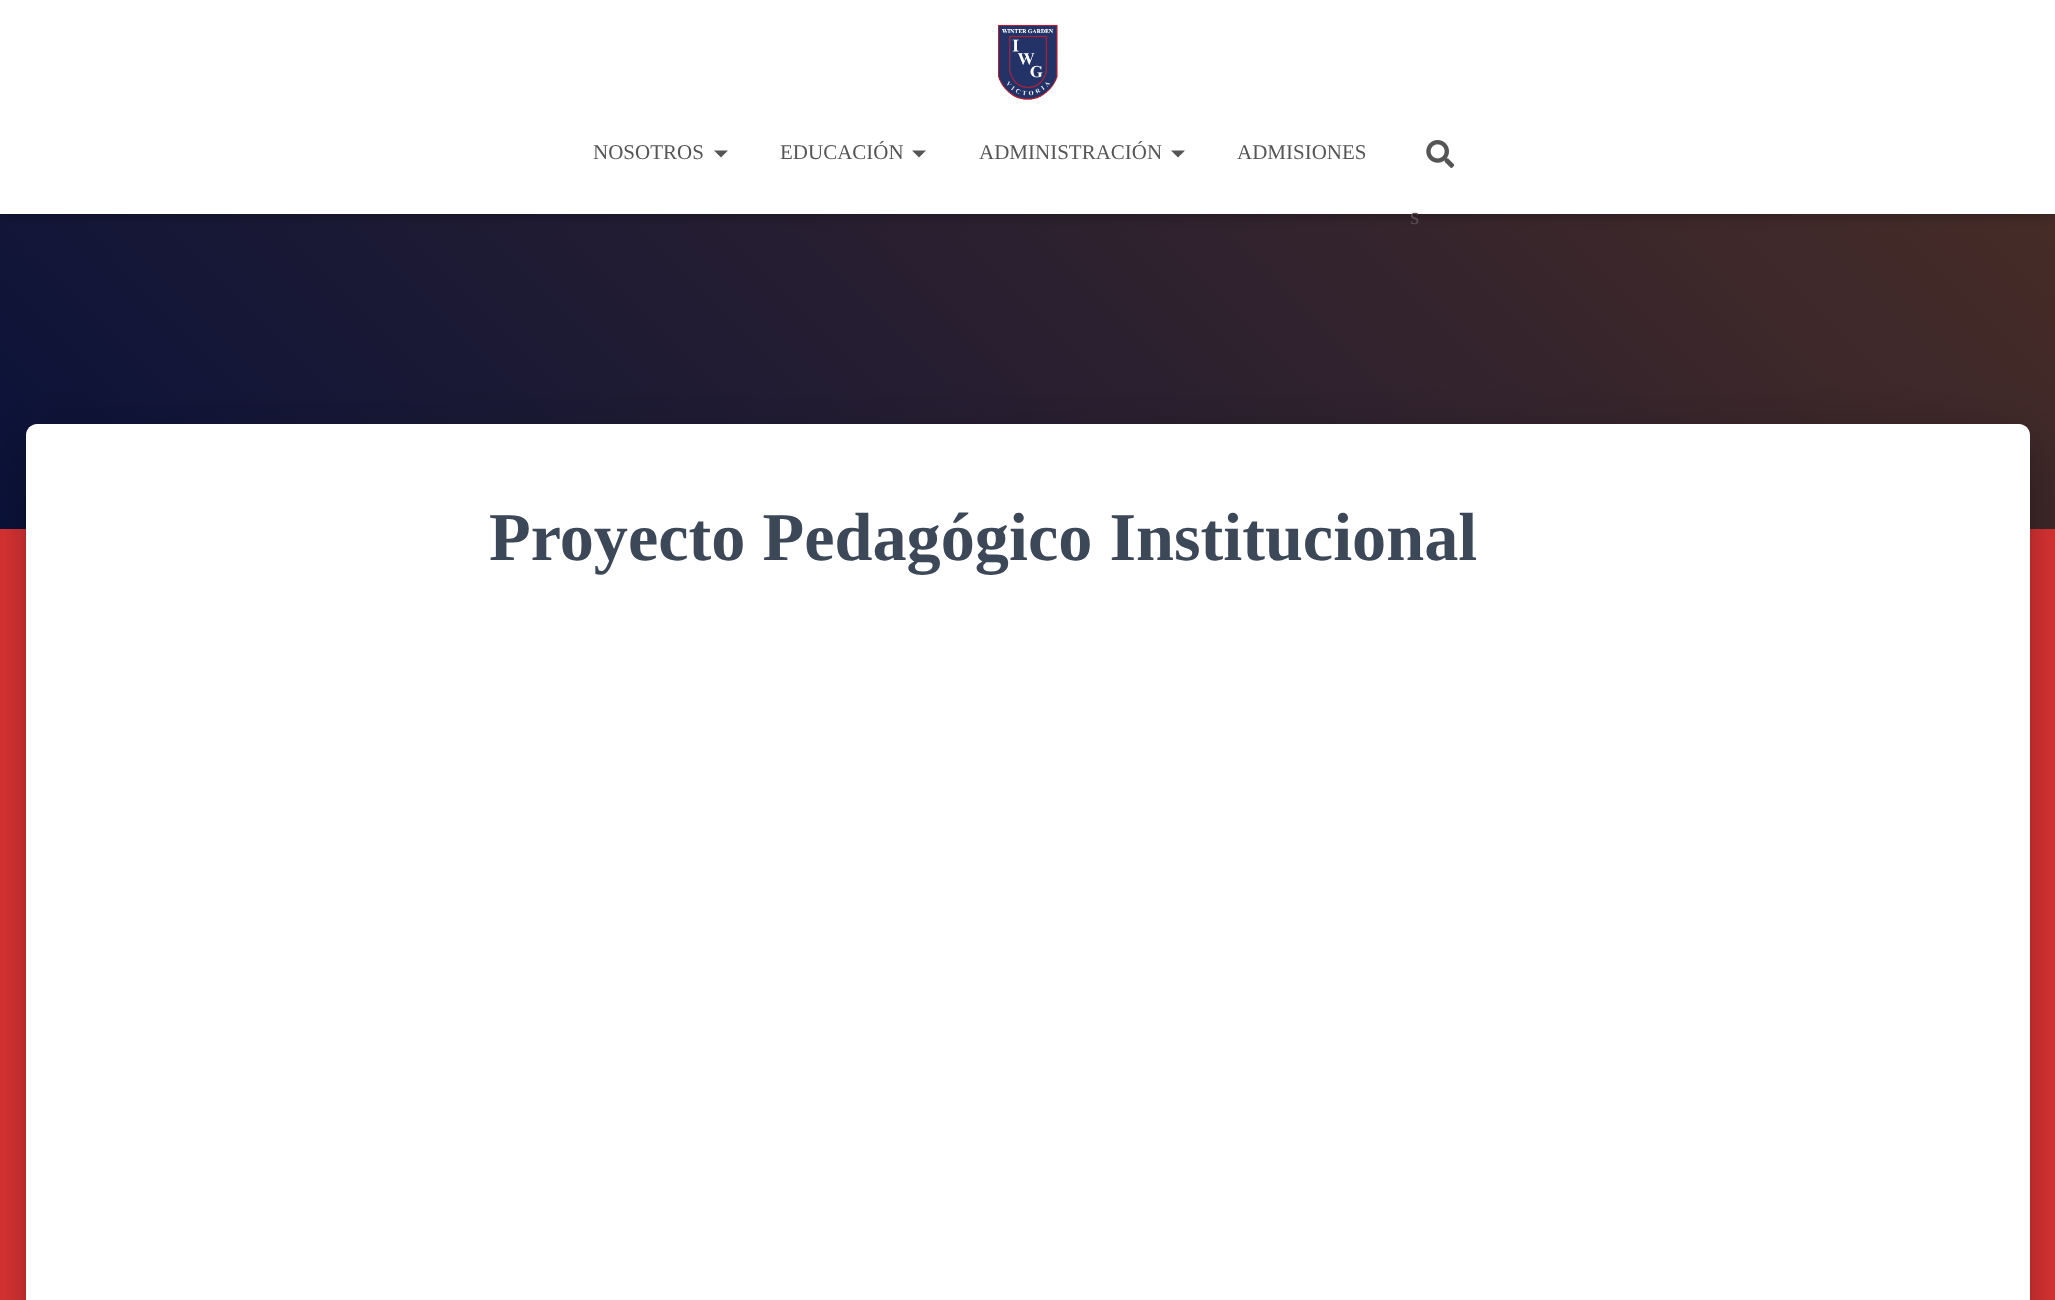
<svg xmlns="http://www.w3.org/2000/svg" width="2055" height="1300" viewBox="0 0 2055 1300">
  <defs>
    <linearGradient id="g1" gradientUnits="userSpaceOnUse" x1="382" y1="910" x2="1674" y2="-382"><stop offset="0" stop-color="#0a123a"/><stop offset="1" stop-color="#4c2e25"/></linearGradient>
    <filter id="blur1" x="-50%" y="-200%" width="200%" height="500%"><feGaussianBlur stdDeviation="4.5"/></filter>
    <filter id="blur2" x="-50%" y="-200%" width="200%" height="500%"><feGaussianBlur stdDeviation="9"/></filter>
    <filter id="blur3" x="-50%" y="-200%" width="200%" height="500%"><feGaussianBlur stdDeviation="26"/></filter>
    <filter id="blur4" x="-50%" y="-200%" width="200%" height="500%"><feGaussianBlur stdDeviation="21"/></filter>
  </defs>
  <rect width="100%" height="100%" fill="#dd3333"/>
  <rect x="0" y="214" width="2055" height="315" fill="url(#g1)"/>
  <rect x="4" y="11" width="2049" height="206" fill="#000000" fill-opacity="0.1" filter="url(#blur1)"/>
  <rect x="0" y="2" width="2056" height="213" fill="#000000" fill-opacity="0.12" filter="url(#blur2)"/>
  <rect x="11" y="12" width="2035" height="193" fill="#000000" fill-opacity="0.42" filter="url(#blur2)"/>
  <rect x="0" y="0" width="2055" height="214" fill="#ffffff"/>
  <image x="998" y="24" width="60" height="76" href="img1.png"/>
  <text x="593" y="159" font-family="Liberation Serif" font-size="21" fill="#555555">NOSOTROS</text>
  <path d="M714 150.5H728L721 157.5Z" fill="#555555"/>
  <text x="780" y="159" font-family="Liberation Serif" font-size="21" fill="#555555">EDUCACIÓN</text>
  <path d="M912 150.5H926L919 157.5Z" fill="#555555"/>
  <text x="979" y="159" font-family="Liberation Serif" font-size="21" fill="#555555">ADMINISTRACIÓN</text>
  <path d="M1171 150.5H1185L1178 157.5Z" fill="#555555"/>
  <text x="1237" y="159" font-family="Liberation Serif" font-size="21" fill="#555555">ADMISIONES</text>
  <image x="1426" y="140" width="28" height="28" href="img2.png"/>
  <text x="1410" y="224" font-family="Liberation Serif" font-size="24" fill="#574b50">s</text>
  <rect x="35" y="446" width="1986" height="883" rx="2" fill="#000000" fill-opacity="0.2" filter="url(#blur2)"/>
  <rect x="18" y="425" width="2021" height="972" rx="19" fill="#000000" fill-opacity="0.12" filter="url(#blur3)"/>
  <rect x="23" y="448" width="2011" height="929" rx="14" fill="#000000" fill-opacity="0.14" filter="url(#blur4)"/>
  <path d="M37 424H2019C2025 424 2030 429 2030 435V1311H26V435C26 429 31 424 37 424Z" fill="#ffffff"/>
  <text x="489" y="560" font-family="Liberation Serif" font-size="68.25" font-weight="bold" fill="#3c4858">Proyecto Pedagógico Institucional</text>
</svg>
